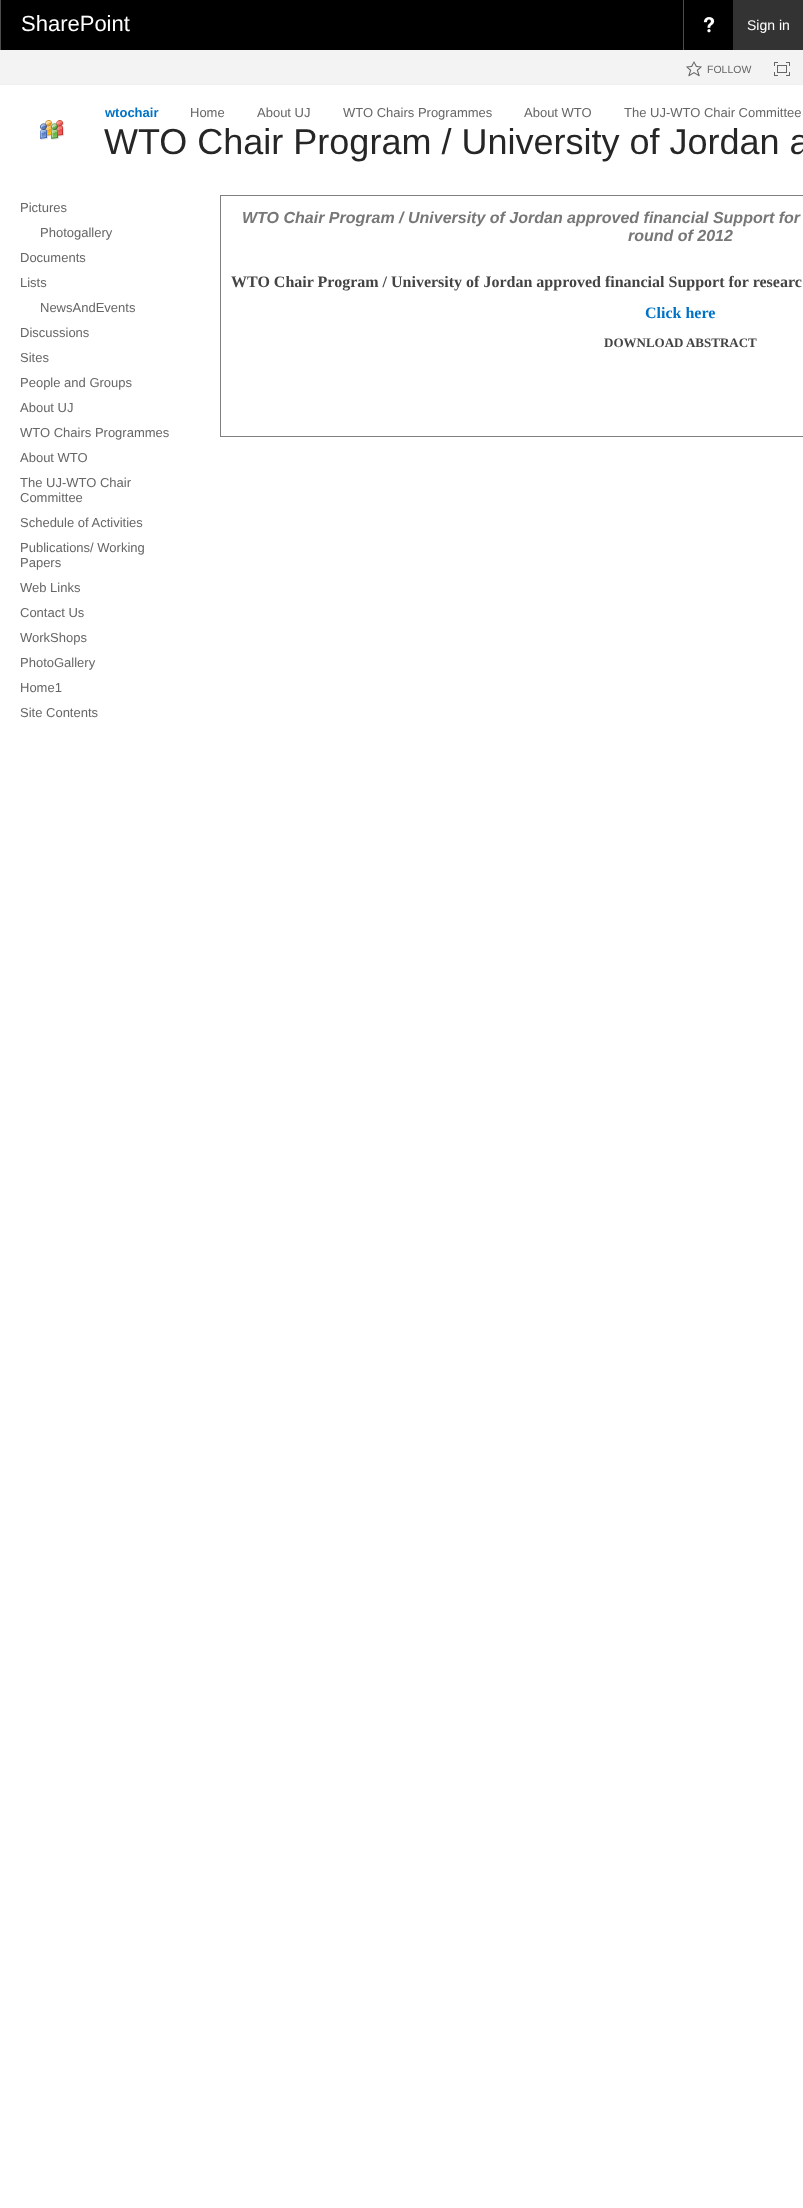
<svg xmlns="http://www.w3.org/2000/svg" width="803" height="2208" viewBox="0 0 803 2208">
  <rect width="100%" height="100%" fill="#ffffff"/>
  <rect x="1" y="0" width="732" height="50" fill="#000000"/>
  <rect x="0" y="0" width="1" height="50" fill="#4d4d4d"/>
  <text x="21" y="31" font-family="Liberation Sans" font-size="22" fill="#ffffff">SharePoint</text>
  <rect x="683" y="0" width="1" height="50" fill="#4d4d4d"/>
  <image x="703" y="17" width="12" height="16" href="img1.png"/>
  <rect x="733" y="0" width="70" height="50" fill="#333333"/>
  <text x="747" y="30" font-family="Liberation Sans" font-size="14" fill="#ffffff">Sign in</text>
  <rect x="0" y="50" width="803" height="34" fill="#f3f3f3"/>
  <rect x="0" y="84" width="803" height="1" fill="#f0f0f0"/>
  <image x="686" y="61" width="16" height="16" href="img2.png"/>
  <text x="707" y="73" font-family="Liberation Sans" font-size="10.5" fill="#666666">FOLLOW</text>
  <image x="774" y="62" width="16" height="14" href="img3.png"/>
  <image x="40" y="120" width="24" height="20" href="img4.png"/>
  <text x="105" y="117" font-family="Liberation Sans" font-size="13" font-weight="bold" fill="#0072c6">wtochair</text>
  <text x="190" y="117" font-family="Liberation Sans" font-size="13" fill="#666666">Home</text>
  <text x="257" y="117" font-family="Liberation Sans" font-size="13" fill="#666666">About UJ</text>
  <text x="343" y="117" font-family="Liberation Sans" font-size="13" fill="#666666">WTO Chairs Programmes</text>
  <text x="524" y="117" font-family="Liberation Sans" font-size="13" fill="#666666">About WTO</text>
  <text x="624" y="117" font-family="Liberation Sans" font-size="13" fill="#666666">The UJ-WTO Chair Committee</text>
  <text x="104" y="154" font-family="Liberation Sans" font-size="36" fill="#262626">WTO Chair Program / University of Jordan a</text>
  <text x="20" y="212" font-family="Liberation Sans" font-size="13" fill="#666666">Pictures</text>
  <text x="40" y="237" font-family="Liberation Sans" font-size="13" fill="#666666">Photogallery</text>
  <text x="20" y="262" font-family="Liberation Sans" font-size="13" fill="#666666">Documents</text>
  <text x="20" y="287" font-family="Liberation Sans" font-size="13" fill="#666666">Lists</text>
  <text x="40" y="312" font-family="Liberation Sans" font-size="13" fill="#666666">NewsAndEvents</text>
  <text x="20" y="337" font-family="Liberation Sans" font-size="13" fill="#666666">Discussions</text>
  <text x="20" y="362" font-family="Liberation Sans" font-size="13" fill="#666666">Sites</text>
  <text x="20" y="387" font-family="Liberation Sans" font-size="13" fill="#666666">People and Groups</text>
  <text x="20" y="412" font-family="Liberation Sans" font-size="13" fill="#666666">About UJ</text>
  <text x="20" y="437" font-family="Liberation Sans" font-size="13" fill="#666666">WTO Chairs Programmes</text>
  <text x="20" y="462" font-family="Liberation Sans" font-size="13" fill="#666666">About WTO</text>
  <text x="20" y="487" font-family="Liberation Sans" font-size="13" fill="#666666">The UJ-WTO Chair</text>
  <text x="20" y="502" font-family="Liberation Sans" font-size="13" fill="#666666">Committee</text>
  <text x="20" y="527" font-family="Liberation Sans" font-size="13" fill="#666666">Schedule of Activities</text>
  <text x="20" y="552" font-family="Liberation Sans" font-size="13" fill="#666666">Publications/ Working</text>
  <text x="20" y="567" font-family="Liberation Sans" font-size="13" fill="#666666">Papers</text>
  <text x="20" y="592" font-family="Liberation Sans" font-size="13" fill="#666666">Web Links</text>
  <text x="20" y="617" font-family="Liberation Sans" font-size="13" fill="#666666">Contact Us</text>
  <text x="20" y="642" font-family="Liberation Sans" font-size="13" fill="#666666">WorkShops</text>
  <text x="20" y="667" font-family="Liberation Sans" font-size="13" fill="#666666">PhotoGallery</text>
  <text x="20" y="692" font-family="Liberation Sans" font-size="13" fill="#666666">Home1</text>
  <text x="20" y="717" font-family="Liberation Sans" font-size="13" fill="#666666">Site Contents</text>
  <rect x="220.5" y="195.5" width="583" height="241" fill="none" stroke="#808080"/>
  <text x="242" y="223" font-family="Liberation Sans" font-size="16" font-weight="bold" font-style="italic" fill="#777777">WTO Chair Program / University of Jordan approved financial Support for</text>
  <text x="628" y="241" font-family="Liberation Sans" font-size="16" font-weight="bold" font-style="italic" fill="#777777">round of 2012</text>
  <text x="231" y="287" font-family="Liberation Serif" font-size="16" font-weight="bold" fill="#444444">WTO Chair Program / University of Jordan approved financial Support for researc</text>
  <text x="645" y="318" font-family="Liberation Serif" font-size="16" font-weight="bold" fill="#0072c6">Click here</text>
  <text x="604" y="347" font-family="Liberation Serif" font-size="13" font-weight="bold" fill="#444444">DOWNLOAD ABSTRACT</text>
</svg>
